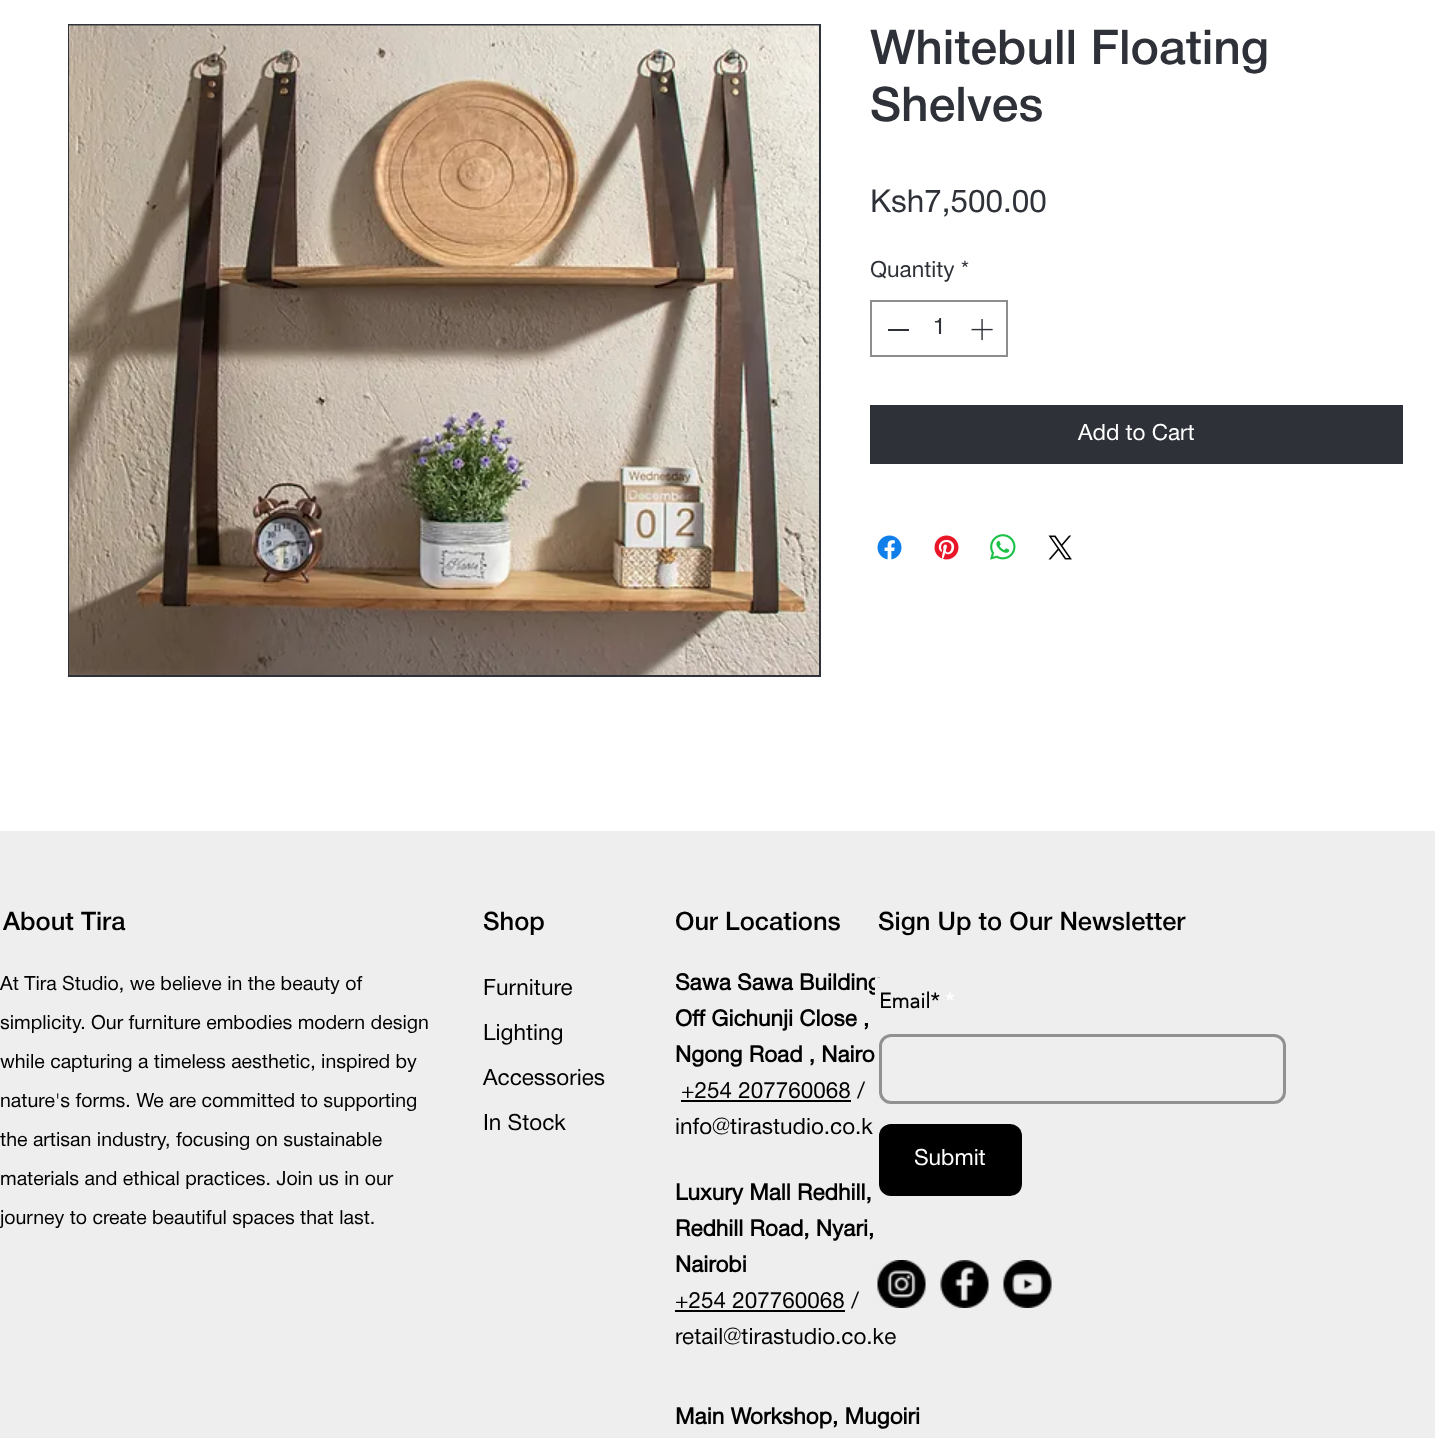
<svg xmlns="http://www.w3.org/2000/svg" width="1435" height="1438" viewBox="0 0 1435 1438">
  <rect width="100%" height="100%" fill="#ffffff"/>
  <rect x="69" y="25" width="751" height="651" fill="none" stroke="#2e3238" stroke-width="2"/>
  <image x="69" y="25" width="750" height="650" href="img1.png"/>
  <text x="870" y="64" font-family="Helvetica Neue" font-size="48" font-weight="500" fill="#2e3238">Whitebull Floating</text>
  <text x="870" y="121" font-family="Helvetica Neue" font-size="48" font-weight="500" fill="#2e3238">Shelves</text>
  <text x="870" y="212" font-family="Helvetica Neue" font-size="31.5" fill="#2e3238">Ksh7,500.00</text>
  <text x="870" y="277" font-family="Helvetica Neue" font-size="22.5" fill="#2e3238">Quantity *</text>
  <rect x="871" y="301" width="136" height="55" fill="none" stroke="#8d8d8d" stroke-width="2"/>
  <rect x="888" y="329" width="21" height="2" fill="#2e3238"/>
  <text x="933" y="334" font-family="Helvetica Neue" font-size="22.5" fill="#2e3238">1</text>
  <image x="971" y="319" width="22" height="22" href="img2.png"/>
  <rect x="870" y="405" width="533" height="59" fill="#2e3238"/>
  <text x="1078" y="440" font-family="Helvetica Neue" font-size="22.5" fill="#ffffff">Add to Cart</text>
  <image x="877" y="535" width="25" height="25" href="img3.png"/>
  <image x="934" y="535" width="25" height="25" href="img4.png"/>
  <image x="990" y="534" width="26" height="26" href="img5.png"/>
  <image x="1048" y="535" width="24" height="25" href="img6.png"/>
  <rect x="0" y="831" width="1435" height="607" fill="#eeeeee"/>
  <text x="3" y="930" font-family="Helvetica Neue" font-size="25.5" font-weight="500" fill="#000000">About Tira</text>
  <text x="0" y="990" font-family="Helvetica Neue" font-size="19.5" fill="#000000">At Tira Studio, we believe in the beauty of</text>
  <text x="0" y="1029" font-family="Helvetica Neue" font-size="19.5" fill="#000000">simplicity. Our furniture embodies modern design</text>
  <text x="0" y="1068" font-family="Helvetica Neue" font-size="19.5" fill="#000000">while capturing a timeless aesthetic, inspired by</text>
  <text x="0" y="1107" font-family="Helvetica Neue" font-size="19.5" fill="#000000">nature's forms. We are committed to supporting</text>
  <text x="0" y="1146" font-family="Helvetica Neue" font-size="19.5" fill="#000000">the artisan industry, focusing on sustainable</text>
  <text x="0" y="1185" font-family="Helvetica Neue" font-size="19.5" fill="#000000">materials and ethical practices. Join us in our</text>
  <text x="0" y="1224" font-family="Helvetica Neue" font-size="19.5" fill="#000000">journey to create beautiful spaces that last.</text>
  <text x="483" y="930" font-family="Helvetica Neue" font-size="25.5" font-weight="500" fill="#000000">Shop</text>
  <text x="483" y="995" font-family="Helvetica Neue" font-size="22.5" fill="#000000">Furniture</text>
  <text x="483" y="1040" font-family="Helvetica Neue" font-size="22.5" fill="#000000">Lighting</text>
  <text x="483" y="1085" font-family="Helvetica Neue" font-size="22.5" fill="#000000">Accessories</text>
  <text x="483" y="1130" font-family="Helvetica Neue" font-size="22.5" fill="#000000">In Stock</text>
  <text x="675" y="930" font-family="Helvetica Neue" font-size="25.5" font-weight="500" fill="#000000">Our Locations</text>
  <text x="675" y="990" font-family="Helvetica Neue" font-size="22.5" font-weight="bold" fill="#000000">Sawa Sawa Building</text>
  <text x="675" y="1026" font-family="Helvetica Neue" font-size="22.5" font-weight="bold" fill="#000000">Off Gichunji Close ,</text>
  <text x="675" y="1062" font-family="Helvetica Neue" font-size="22.5" font-weight="bold" fill="#000000">Ngong Road , Nairo</text>
  <text x="681" y="1098" font-family="Helvetica Neue" font-size="22.5" fill="#000000">+254 207760068 /</text>
  <rect x="681" y="1100" width="170" height="2" fill="#000000"/>
  <text x="675" y="1134" font-family="Helvetica Neue" font-size="22.5" fill="#000000">info@tirastudio.co.k</text>
  <text x="675" y="1200" font-family="Helvetica Neue" font-size="22.5" font-weight="bold" fill="#000000">Luxury Mall Redhill,</text>
  <text x="675" y="1236" font-family="Helvetica Neue" font-size="22.5" font-weight="bold" fill="#000000">Redhill Road, Nyari,</text>
  <text x="675" y="1272" font-family="Helvetica Neue" font-size="22.5" font-weight="bold" fill="#000000">Nairobi</text>
  <text x="675" y="1308" font-family="Helvetica Neue" font-size="22.5" fill="#000000">+254 207760068 /</text>
  <rect x="675" y="1310" width="170" height="2" fill="#000000"/>
  <text x="675" y="1344" font-family="Helvetica Neue" font-size="22.5" fill="#000000">retail@tirastudio.co.ke</text>
  <text x="675" y="1424" font-family="Helvetica Neue" font-size="22.5" font-weight="bold" fill="#000000">Main Workshop, Mugoiri</text>
  <text x="878" y="930" font-family="Helvetica Neue" font-size="25.5" font-weight="500" fill="#000000">Sign Up to Our Newsletter</text>
  <rect x="875" y="978" width="5" height="17" fill="#eeeeee"/>
  <text x="879" y="1008" font-family="'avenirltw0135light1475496'" font-size="21" font-weight="bold" fill="#000000">Email*</text>
  <text x="945" y="1008" font-family="'avenirltw0135light1475496'" font-size="21" font-weight="bold" fill="#ffffff">*</text>
  <rect x="880.5" y="1035.5" width="404" height="67" rx="10.5" fill="none" stroke="#919191" stroke-width="3"/>
  <rect x="879" y="1124" width="143" height="72" rx="12" fill="#000000"/>
  <text x="914" y="1165" font-family="Helvetica Neue" font-size="22.5" fill="#ffffff">Submit</text>
  <image x="877" y="1260" width="49" height="48" href="img7.png"/>
  <image x="940" y="1260" width="49" height="48" href="img8.png"/>
  <image x="1003" y="1260" width="49" height="48" href="img9.png"/>
</svg>
